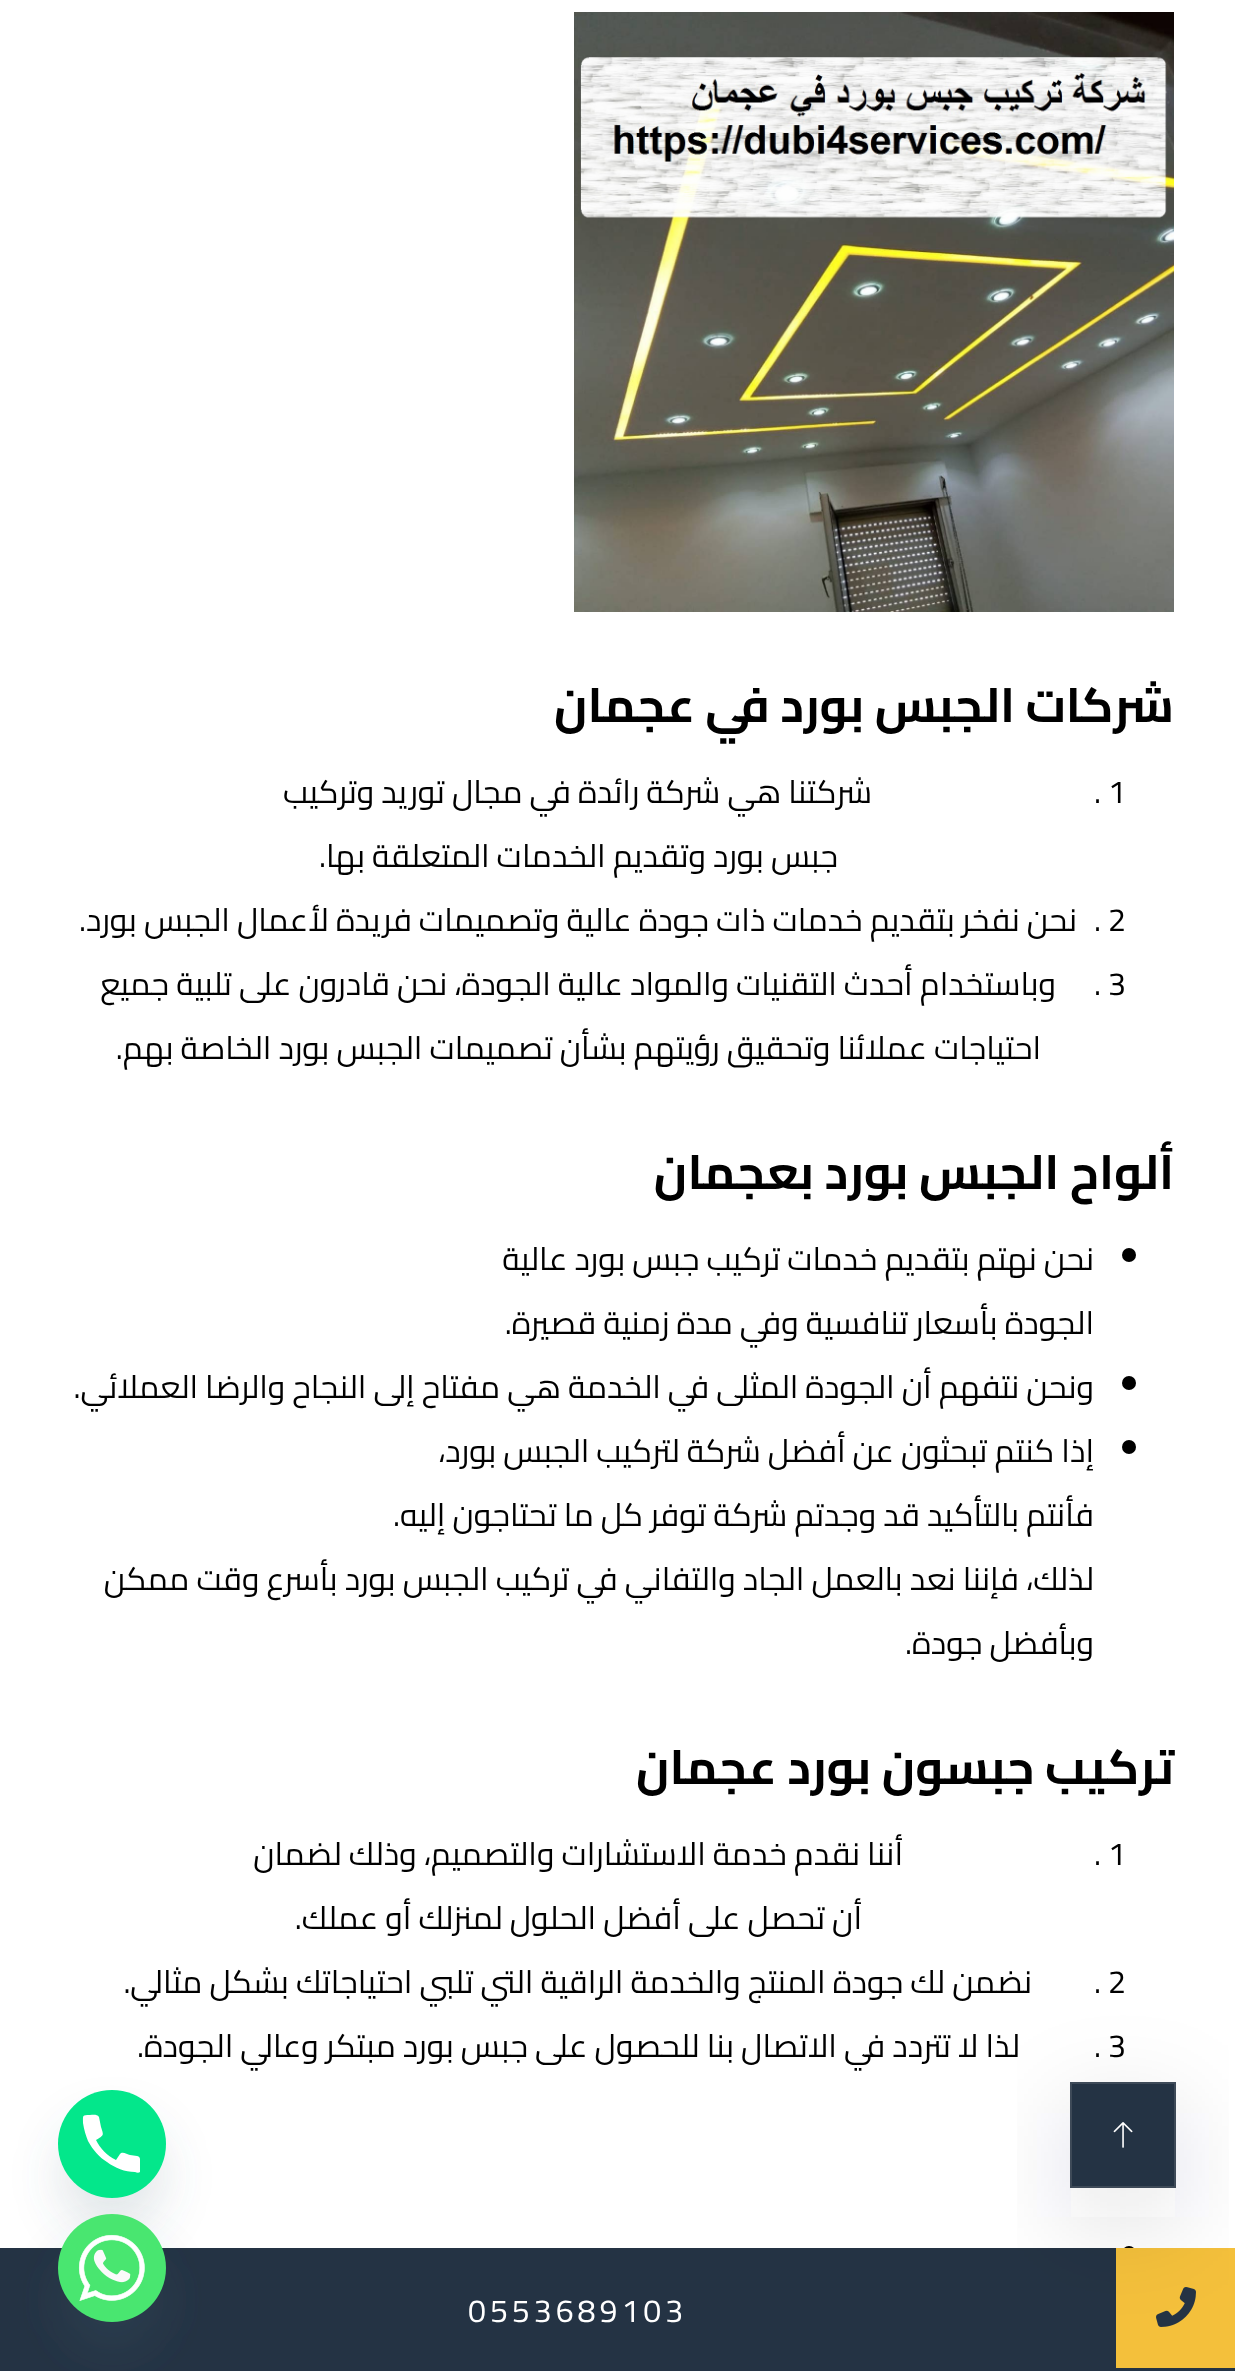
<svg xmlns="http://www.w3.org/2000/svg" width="1235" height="2371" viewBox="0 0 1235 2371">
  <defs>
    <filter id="blur1" x="-50%" y="-200%" width="200%" height="500%"><feGaussianBlur stdDeviation="50"/></filter>
    <filter id="blur2" x="-50%" y="-200%" width="200%" height="500%"><feGaussianBlur stdDeviation="24"/></filter>
  </defs>
  <rect width="100%" height="100%" fill="#ffffff"/>
  <image x="574" y="12" width="600" height="600" href="img1.png"/>
  <text x="1174" y="722" font-family="Cairo" font-size="48" font-weight="bold" direction="rtl" fill="#000000">شركات الجبس بورد في عجمان</text>
  <text x="1094" y="803" font-family="Cairo" font-size="32" fill="#000000">. 1</text>
  <text x="872" y="803" font-family="Cairo" font-size="32" direction="rtl" fill="#000000">شركتنا هي شركة رائدة في مجال توريد وتركيب</text>
  <text x="838" y="867" font-family="Cairo" font-size="32" direction="rtl" fill="#000000">جبس بورد وتقديم الخدمات المتعلقة بها.</text>
  <text x="1094" y="931" font-family="Cairo" font-size="32" fill="#000000">. 2</text>
  <text x="1077" y="931" font-family="Cairo" font-size="32" direction="rtl" fill="#000000">نحن نفخر بتقديم خدمات ذات جودة عالية وتصميمات فريدة لأعمال الجبس بورد.</text>
  <text x="1094" y="995" font-family="Cairo" font-size="32" fill="#000000">. 3</text>
  <text x="1056" y="995" font-family="Cairo" font-size="32" direction="rtl" fill="#000000">وباستخدام أحدث التقنيات والمواد عالية الجودة، نحن قادرون على تلبية جميع</text>
  <text x="1041" y="1059" font-family="Cairo" font-size="32" direction="rtl" fill="#000000">احتياجات عملائنا وتحقيق رؤيتهم بشأن تصميمات الجبس بورد الخاصة بهم.</text>
  <text x="1174" y="1189" font-family="Cairo" font-size="48" font-weight="bold" direction="rtl" fill="#000000">ألواح الجبس بورد بعجمان</text>
  <circle cx="1129" cy="1255" r="7" fill="#000000"/>
  <text x="1094" y="1270" font-family="Cairo" font-size="32" direction="rtl" fill="#000000">نحن نهتم بتقديم خدمات تركيب جبس بورد عالية</text>
  <text x="1094" y="1334" font-family="Cairo" font-size="32" direction="rtl" fill="#000000">الجودة بأسعار تنافسية وفي مدة زمنية قصيرة.</text>
  <circle cx="1129" cy="1383" r="7" fill="#000000"/>
  <text x="1094" y="1398" font-family="Cairo" font-size="32" direction="rtl" fill="#000000">ونحن نتفهم أن الجودة المثلى في الخدمة هي مفتاح إلى النجاح والرضا العملائي.</text>
  <circle cx="1129" cy="1447" r="7" fill="#000000"/>
  <text x="1094" y="1462" font-family="Cairo" font-size="32" direction="rtl" fill="#000000">إذا كنتم تبحثون عن أفضل شركة لتركيب الجبس بورد،</text>
  <text x="1094" y="1526" font-family="Cairo" font-size="32" direction="rtl" fill="#000000">فأنتم بالتأكيد قد وجدتم شركة توفر كل ما تحتاجون إليه.</text>
  <text x="1094" y="1590" font-family="Cairo" font-size="32" direction="rtl" fill="#000000">لذلك، فإننا نعد بالعمل الجاد والتفاني في تركيب الجبس بورد بأسرع وقت ممكن</text>
  <text x="1094" y="1654" font-family="Cairo" font-size="32" direction="rtl" fill="#000000">وبأفضل جودة.</text>
  <text x="1174" y="1784" font-family="Cairo" font-size="48" font-weight="bold" direction="rtl" fill="#000000">تركيب جبسون بورد عجمان</text>
  <text x="1094" y="1865" font-family="Cairo" font-size="32" fill="#000000">. 1</text>
  <text x="903" y="1865" font-family="Cairo" font-size="32" direction="rtl" fill="#000000">أننا نقدم خدمة الاستشارات والتصميم، وذلك لضمان</text>
  <text x="862" y="1929" font-family="Cairo" font-size="32" direction="rtl" fill="#000000">أن تحصل على أفضل الحلول لمنزلك أو عملك.</text>
  <text x="1094" y="1993" font-family="Cairo" font-size="32" fill="#000000">. 2</text>
  <text x="1032" y="1993" font-family="Cairo" font-size="32" direction="rtl" fill="#000000">نضمن لك جودة المنتج والخدمة الراقية التي تلبي احتياجاتك بشكل مثالي.</text>
  <text x="1094" y="2057" font-family="Cairo" font-size="32" fill="#000000">. 3</text>
  <text x="1020" y="2057" font-family="Cairo" font-size="32" direction="rtl" fill="#000000">لذا لا تتردد في الاتصال بنا للحصول على جبس بورد مبتكر وعالي الجودة.</text>
  <circle cx="1129" cy="2253" r="7" fill="#000000"/>
  <rect x="0" y="2248" width="1235" height="123" fill="#243344"/>
  <rect x="1116" y="2248" width="119" height="120" fill="#f4c03b"/>
  <image x="1156" y="2287" width="40" height="40" href="img3.png"/>
  <rect x="1070" y="2112" width="106" height="106" fill="#243344" fill-opacity="0.15" filter="url(#blur1)"/>
  <rect x="1071" y="2083" width="104" height="104" fill="#243344" stroke="#3e4a58" stroke-width="2"/>
  <image x="1113" y="2122" width="20" height="26" href="img2.png"/>
  <text x="468" y="2322" font-family="Cairo" font-size="32" letter-spacing="4" fill="#ffffff">0553689103</text>
  <rect x="58" y="2122" width="108" height="108" rx="54" fill="#49687e" fill-opacity="0.16" filter="url(#blur2)"/>
  <circle cx="112" cy="2144" r="54" fill="#03e78b"/>
  <path d="M137 2156L130 2155C127 2154 122 2151 120 2154L116 2160C107 2156 100 2148 96 2140C104 2135 104 2136 101 2127L99 2117C97 2114 93 2115 90 2115C82 2115 83 2115 83 2123C84 2130 86 2136 88 2141C93 2150 99 2157 107 2162C115 2168 125 2172 135 2172C137 2173 139 2173 140 2172V2159C140 2157 138 2156 137 2156Z" fill="#ffffff"/>
  <rect x="58" y="2246" width="108" height="108" rx="54" fill="#49687e" fill-opacity="0.16" filter="url(#blur2)"/>
  <image x="58" y="2214" width="108" height="108" href="img4.png"/>
</svg>
